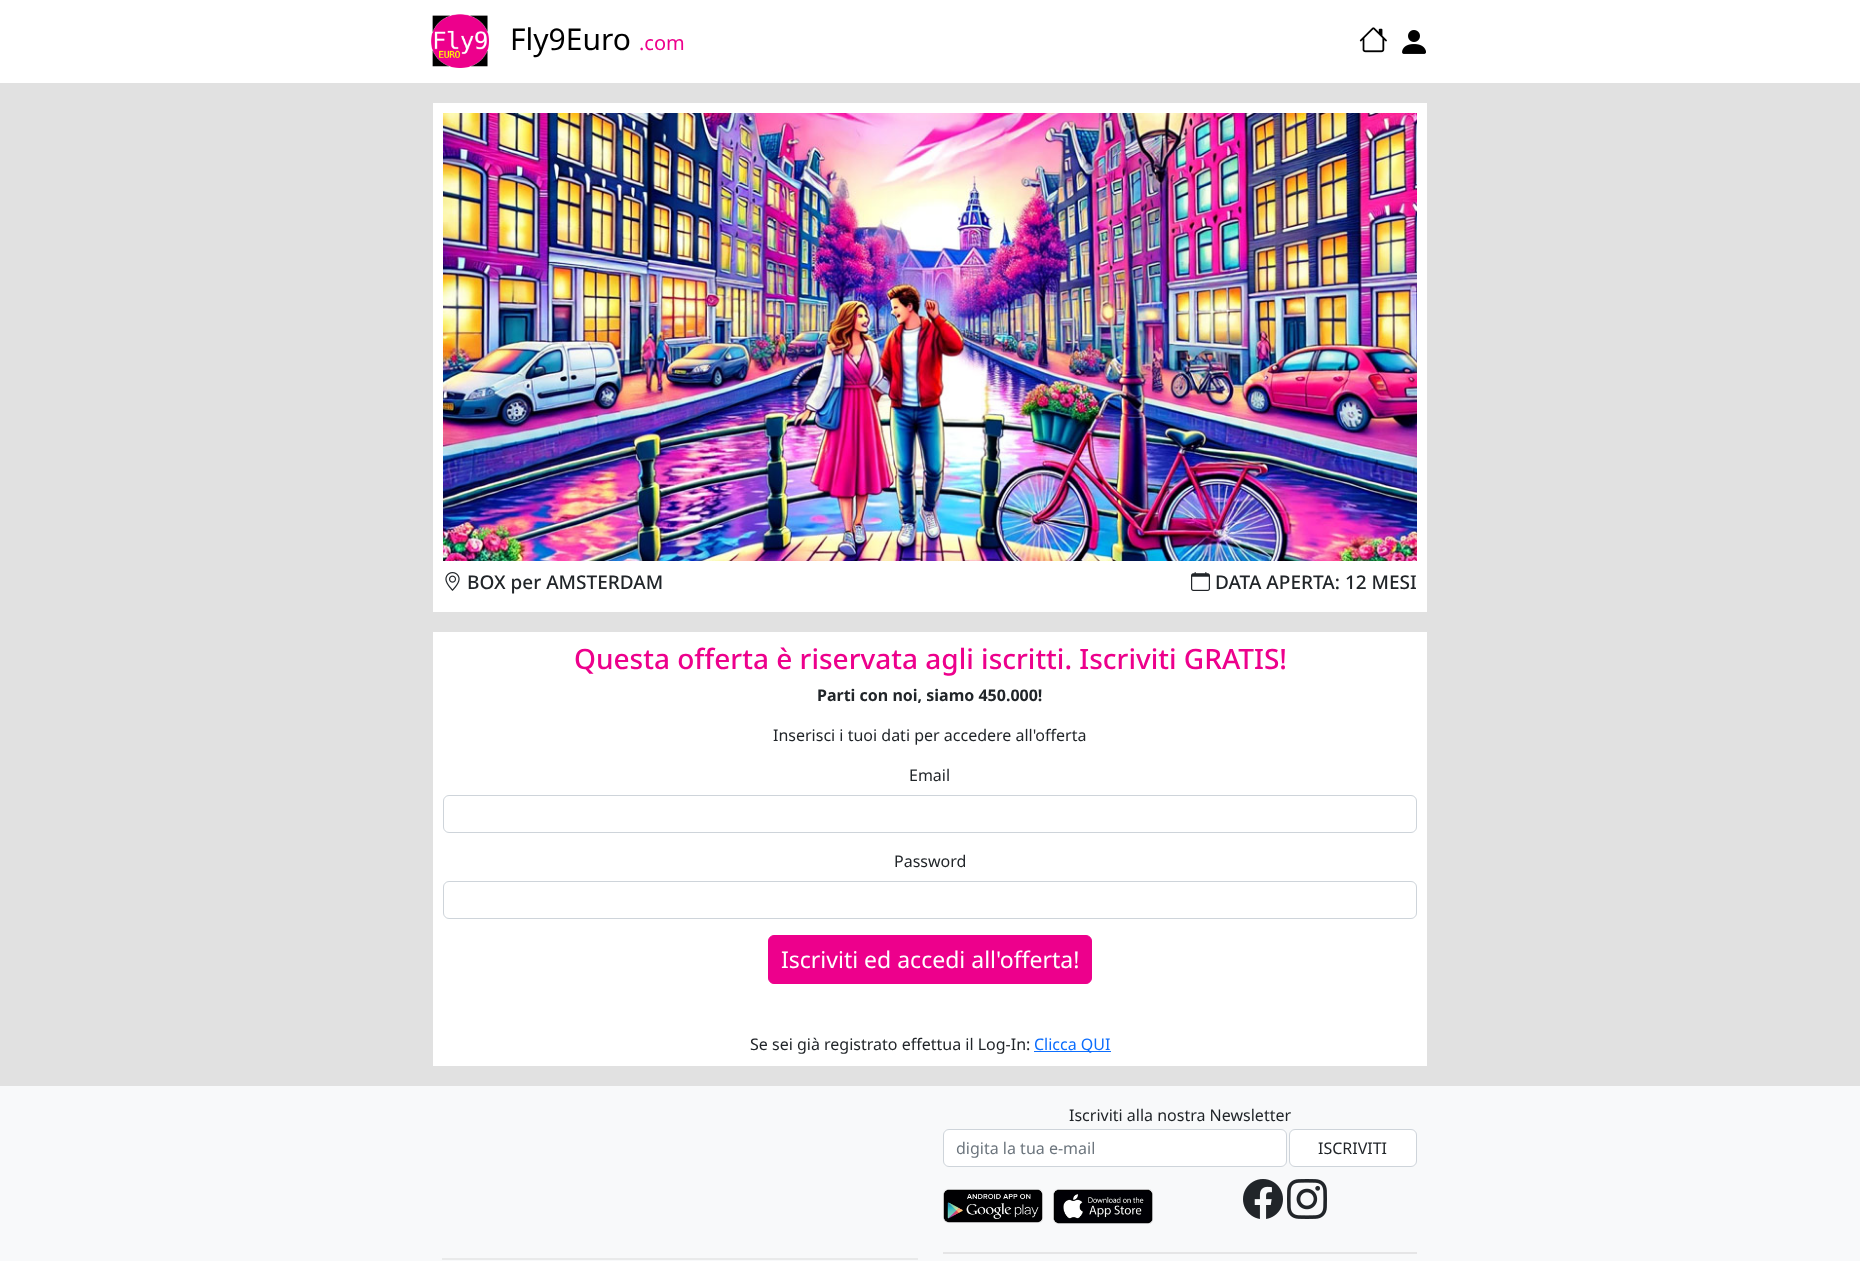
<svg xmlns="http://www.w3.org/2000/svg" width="1860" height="1261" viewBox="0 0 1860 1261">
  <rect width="100%" height="100%" fill="#e1e1e1"/>
  <rect x="0" y="0" width="1860" height="83" fill="#ffffff"/>
  <image x="431" y="14" width="58" height="54" href="img1.png"/>
  <text x="510" y="50" font-family="Noto Sans" font-size="30" fill="#000000">Fly9Euro</text>
  <text x="639" y="50" font-family="Noto Sans" font-size="20" fill="#ed008c">.com</text>
  <image x="1359" y="27" width="28" height="26" href="img2.png"/>
  <image x="1402" y="30" width="24" height="24" href="img3.png"/>
  <rect x="433" y="103" width="994" height="509" fill="#ffffff"/>
  <image x="443" y="113" width="974" height="448" href="img4.png"/>
  <image x="445" y="572" width="15" height="19" href="img5.png"/>
  <text x="467" y="589" font-family="Noto Sans" font-size="19" font-weight="500" fill="#212529">BOX per AMSTERDAM</text>
  <image x="1191" y="572" width="19" height="19" href="img6.png"/>
  <text x="1215" y="589" font-family="Noto Sans" font-size="19" font-weight="500" fill="#212529">DATA APERTA: 12 MESI</text>
  <rect x="433" y="632" width="994" height="434" fill="#ffffff"/>
  <text x="574" y="669" font-family="Noto Sans" font-size="28" font-weight="500" fill="#ed008c">Questa offerta è riservata agli iscritti. Iscriviti GRATIS!</text>
  <text x="817" y="701" font-family="Noto Sans" font-size="16" font-weight="bold" fill="#212529">Parti con noi, siamo 450.000!</text>
  <text x="773" y="741" font-family="Noto Sans" font-size="16" fill="#212529">Inserisci i tuoi dati per accedere all'offerta</text>
  <text x="909" y="781" font-family="Noto Sans" font-size="16" fill="#212529">Email</text>
  <rect x="443.5" y="795.5" width="973" height="37" rx="5.5" fill="none" stroke="#ced4da"/>
  <text x="894" y="867" font-family="Noto Sans" font-size="16" fill="#212529">Password</text>
  <rect x="443.5" y="881.5" width="973" height="37" rx="5.5" fill="none" stroke="#ced4da"/>
  <rect x="768.5" y="935.5" width="323" height="48" rx="5.5" fill="#ed008c" stroke="#ed008c"/>
  <text x="781" y="968" font-family="Noto Sans" font-size="23" fill="#ffffff">Iscriviti ed accedi all'offerta!</text>
  <text x="750" y="1050" font-family="Noto Sans" font-size="16" fill="#212529">Se sei già registrato effettua il Log-In:</text>
  <rect x="1034" y="1051" width="77" height="1" fill="#0d6efd"/>
  <text x="1034" y="1050" font-family="Noto Sans" font-size="16" fill="#0d6efd">Clicca QUI</text>
  <rect x="0" y="1086" width="1860" height="175" fill="#f8f9fa"/>
  <text x="1069" y="1121" font-family="Noto Sans" font-size="16" fill="#212529">Iscriviti alla nostra Newsletter</text>
  <rect x="943.5" y="1129.5" width="343" height="37" rx="5.5" fill="#ffffff" stroke="#ced4da"/>
  <text x="956" y="1154" font-family="Noto Sans" font-size="16" fill="#6c757d">digita la tua e-mail</text>
  <rect x="1289.5" y="1129.5" width="127" height="37" rx="5.5" fill="#ffffff" stroke="#ced4da"/>
  <text x="1318" y="1154" font-family="Noto Sans" font-size="16" fill="#212529">ISCRIVITI</text>
  <image x="943" y="1189" width="100" height="34" href="img7.png"/>
  <image x="1053" y="1189" width="100" height="35" href="img8.png"/>
  <image x="1243" y="1179" width="40" height="40" href="img9.png"/>
  <image x="1287" y="1179" width="40" height="40" href="img10.png"/>
  <rect x="943" y="1252" width="474" height="2" fill="#e5e5e6"/>
  <rect x="442" y="1258" width="476" height="2" fill="#e9eaea"/>
</svg>
